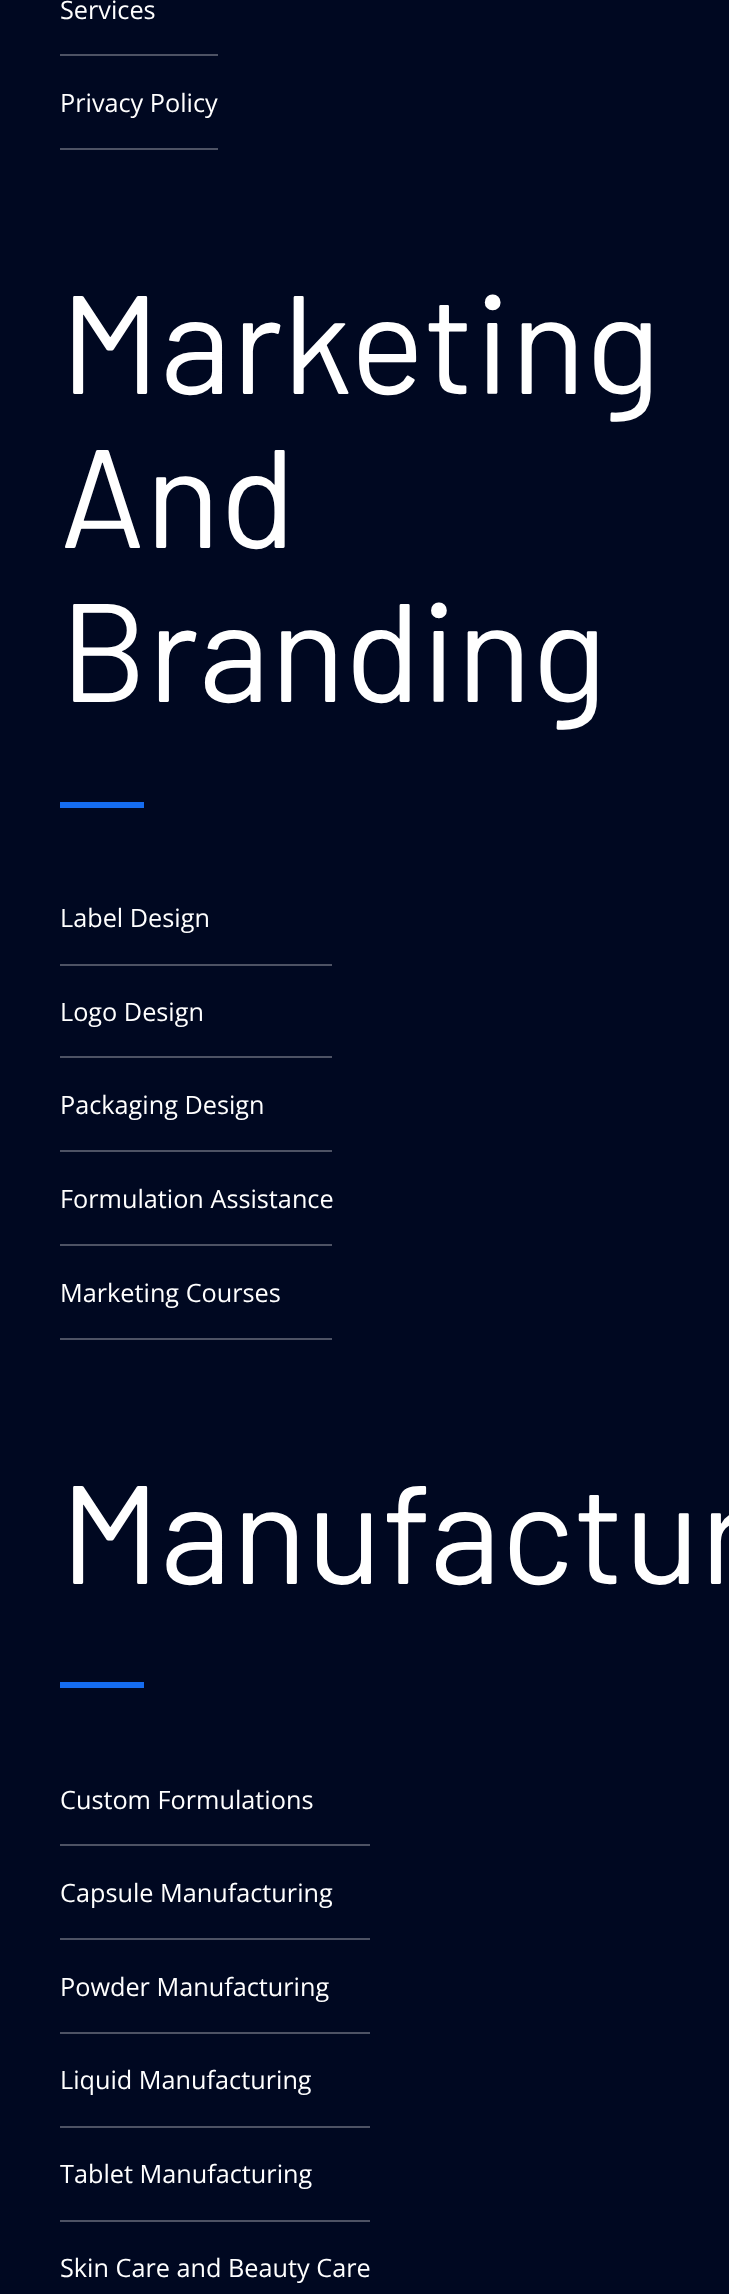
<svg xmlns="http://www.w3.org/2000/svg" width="729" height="2294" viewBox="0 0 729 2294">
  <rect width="100%" height="100%" fill="#000821"/>
  <rect x="60" y="54" width="158" height="2" fill="#4d5264"/>
  <text x="60" y="19" font-family="Open Sans" font-size="25.25" fill="#ffffff">Services</text>
  <rect x="60" y="148" width="158" height="2" fill="#4d5264"/>
  <text x="60" y="112" font-family="Open Sans" font-size="25.25" fill="#ffffff">Privacy Policy</text>
  <text x="60" y="394" font-family="Barlow" font-size="140" fill="#ffffff">Marketing</text>
  <text x="60" y="548" font-family="Barlow" font-size="140" fill="#ffffff">And</text>
  <text x="60" y="702" font-family="Barlow" font-size="140" fill="#ffffff">Branding</text>
  <rect x="60" y="802" width="84" height="6" fill="#156cf0"/>
  <rect x="60" y="964" width="272" height="2" fill="#4d5264"/>
  <text x="60" y="927" font-family="Open Sans" font-size="25.25" fill="#ffffff">Label Design</text>
  <rect x="60" y="1056" width="272" height="2" fill="#4d5264"/>
  <text x="60" y="1021" font-family="Open Sans" font-size="25.25" fill="#ffffff">Logo Design</text>
  <rect x="60" y="1150" width="272" height="2" fill="#4d5264"/>
  <text x="60" y="1114" font-family="Open Sans" font-size="25.25" fill="#ffffff">Packaging Design</text>
  <rect x="60" y="1244" width="272" height="2" fill="#4d5264"/>
  <text x="60" y="1208" font-family="Open Sans" font-size="25.25" fill="#ffffff">Formulation Assistance</text>
  <rect x="60" y="1338" width="272" height="2" fill="#4d5264"/>
  <text x="60" y="1302" font-family="Open Sans" font-size="25.25" fill="#ffffff">Marketing Courses</text>
  <text x="60" y="1584" font-family="Barlow" font-size="140" fill="#ffffff">Manufactur</text>
  <rect x="60" y="1682" width="84" height="6" fill="#156cf0"/>
  <rect x="60" y="1844" width="310" height="2" fill="#4d5264"/>
  <text x="60" y="1809" font-family="Open Sans" font-size="25.25" fill="#ffffff">Custom Formulations</text>
  <rect x="60" y="1938" width="310" height="2" fill="#4d5264"/>
  <text x="60" y="1902" font-family="Open Sans" font-size="25.25" fill="#ffffff">Capsule Manufacturing</text>
  <rect x="60" y="2032" width="310" height="2" fill="#4d5264"/>
  <text x="60" y="1996" font-family="Open Sans" font-size="25.25" fill="#ffffff">Powder Manufacturing</text>
  <rect x="60" y="2126" width="310" height="2" fill="#4d5264"/>
  <text x="60" y="2089" font-family="Open Sans" font-size="25.25" fill="#ffffff">Liquid Manufacturing</text>
  <rect x="60" y="2220" width="310" height="2" fill="#4d5264"/>
  <text x="60" y="2183" font-family="Open Sans" font-size="25.25" fill="#ffffff">Tablet Manufacturing</text>
  <text x="60" y="2277" font-family="Open Sans" font-size="25.25" fill="#ffffff">Skin Care and Beauty Care</text>
</svg>
